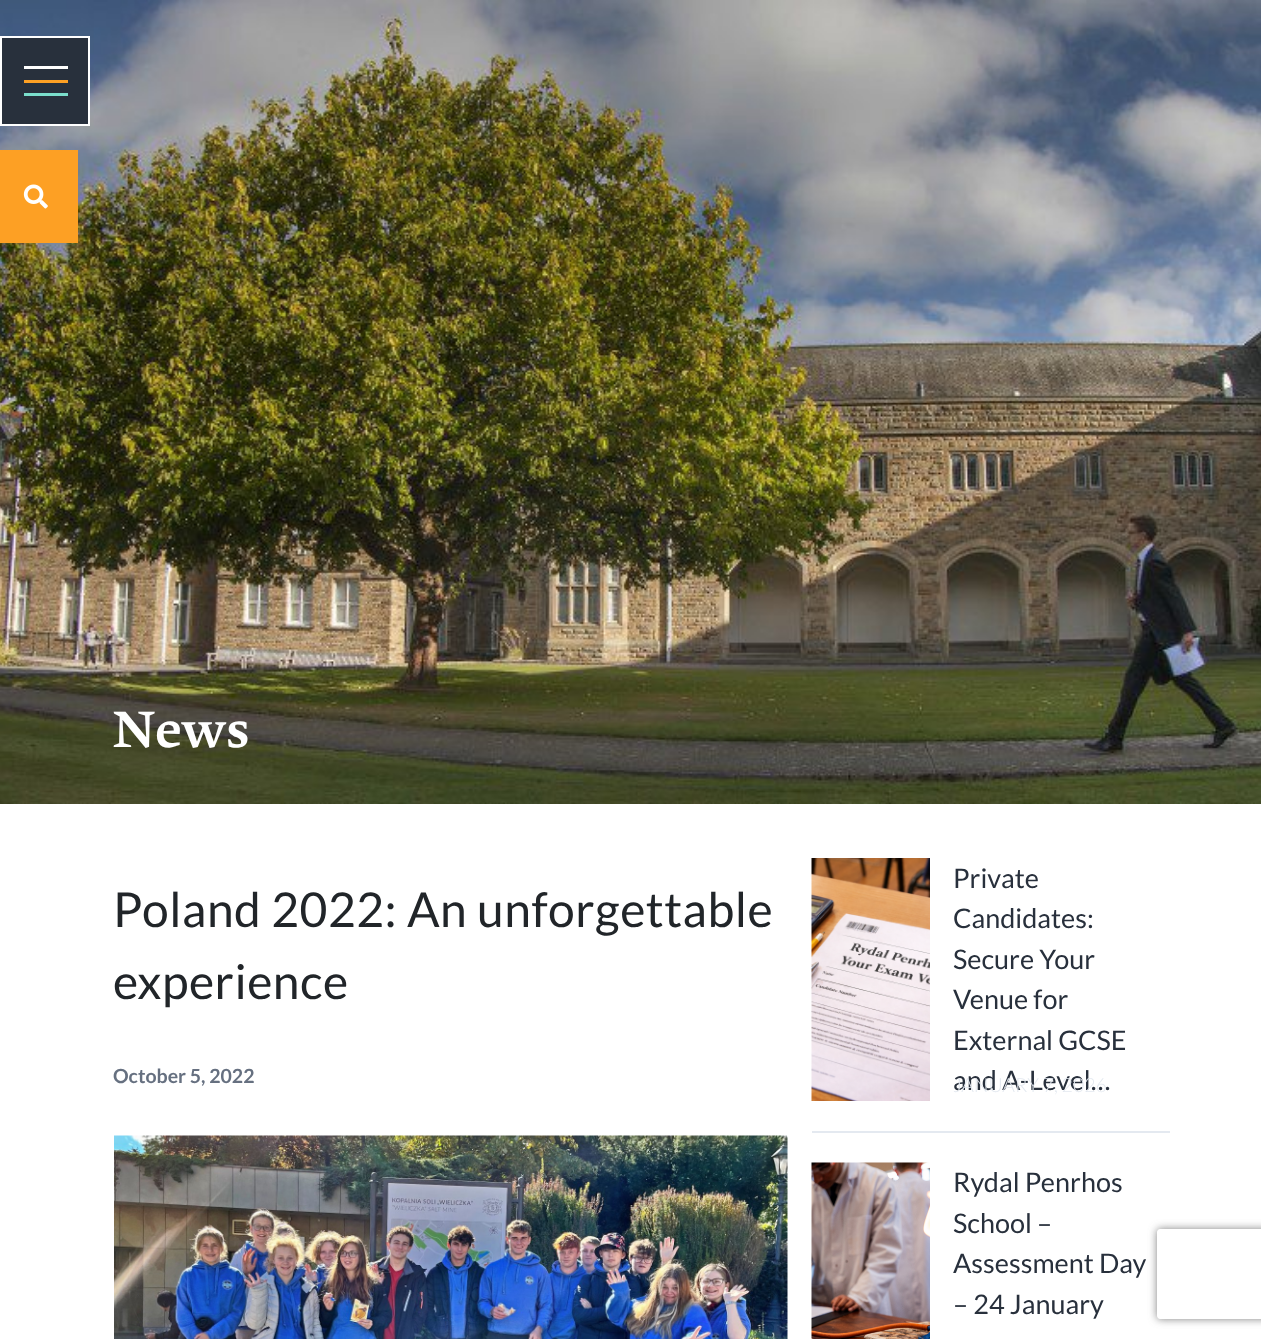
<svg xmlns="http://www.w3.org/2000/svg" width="1261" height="1339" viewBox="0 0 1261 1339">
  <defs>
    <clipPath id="clip1"><path d="M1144 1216H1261V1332H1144ZM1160 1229H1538C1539.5 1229 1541 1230.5 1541 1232V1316C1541 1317.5 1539.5 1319 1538 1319H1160C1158.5 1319 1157 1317.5 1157 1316V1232C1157 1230.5 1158.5 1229 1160 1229Z" clip-rule="evenodd"/></clipPath>
    <filter id="blur1" x="-50%" y="-200%" width="200%" height="500%"><feGaussianBlur stdDeviation="4"/></filter>
  </defs>
  <rect width="100%" height="100%" fill="#ffffff"/>
  <image x="0" y="0" width="1261" height="804" href="img2.png"/>
  <rect x="1" y="37" width="88" height="88" fill="#28303c" stroke="#ffffff" stroke-width="2"/>
  <rect x="24" y="80" width="44" height="3" fill="#fda024"/>
  <rect x="24" y="66" width="44" height="3" fill="#ffffff"/>
  <rect x="24" y="93" width="44" height="3" fill="#7bdecc"/>
  <rect x="0" y="150" width="78" height="93" fill="#fda024"/>
  <image x="23" y="184" width="25" height="25" href="img1.png"/>
  <text x="113" y="747" font-family="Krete" font-size="51" font-weight="500" fill="#ffffff">News</text>
  <text x="113" y="927" font-family="Lato" font-size="48" letter-spacing="0.5" fill="#212529">Poland 2022: An unforgettable</text>
  <text x="113" y="999" font-family="Lato" font-size="48" letter-spacing="0.5" fill="#212529">experience</text>
  <text x="113" y="1083" font-family="Lato" font-size="19.5" font-weight="bold" fill="#667080">October 5, 2022</text>
  <image x="114" y="1135" width="674" height="204" href="img3.png"/>
  <rect x="812" y="1131" width="358" height="2" fill="#e4e9f0"/>
  <image x="811" y="858" width="119" height="243" href="img4.png"/>
  <text x="953" y="888" font-family="Lato" font-size="27" fill="#28303c">Private</text>
  <text x="953" y="928" font-family="Lato" font-size="27" fill="#28303c">Candidates:</text>
  <text x="953" y="969" font-family="Lato" font-size="27" fill="#28303c">Secure Your</text>
  <text x="953" y="1009" font-family="Lato" font-size="27" fill="#28303c">Venue for</text>
  <text x="953" y="1050" font-family="Lato" font-size="27" fill="#28303c">External GCSE</text>
  <text x="953" y="1090" font-family="Lato" font-size="27" fill="#28303c">and A-Level…</text>
  <text x="953" y="1092" font-family="Lato" font-size="19.5" font-weight="300" fill="#e4e9f0">JANUARY 7, 2026</text>
  <image x="811" y="1162" width="119" height="177" href="img5.png"/>
  <text x="953" y="1192" font-family="Lato" font-size="27" fill="#28303c">Rydal Penrhos</text>
  <text x="953" y="1233" font-family="Lato" font-size="27" fill="#28303c">School –</text>
  <text x="953" y="1273" font-family="Lato" font-size="27" fill="#28303c">Assessment Day</text>
  <text x="953" y="1314" font-family="Lato" font-size="27" fill="#28303c">– 24 January</text>
  <g clip-path="url(#clip1)">
    <rect x="1157" y="1229" width="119" height="90" rx="3" fill="#808080" filter="url(#blur1)"/>
  </g>
</svg>
